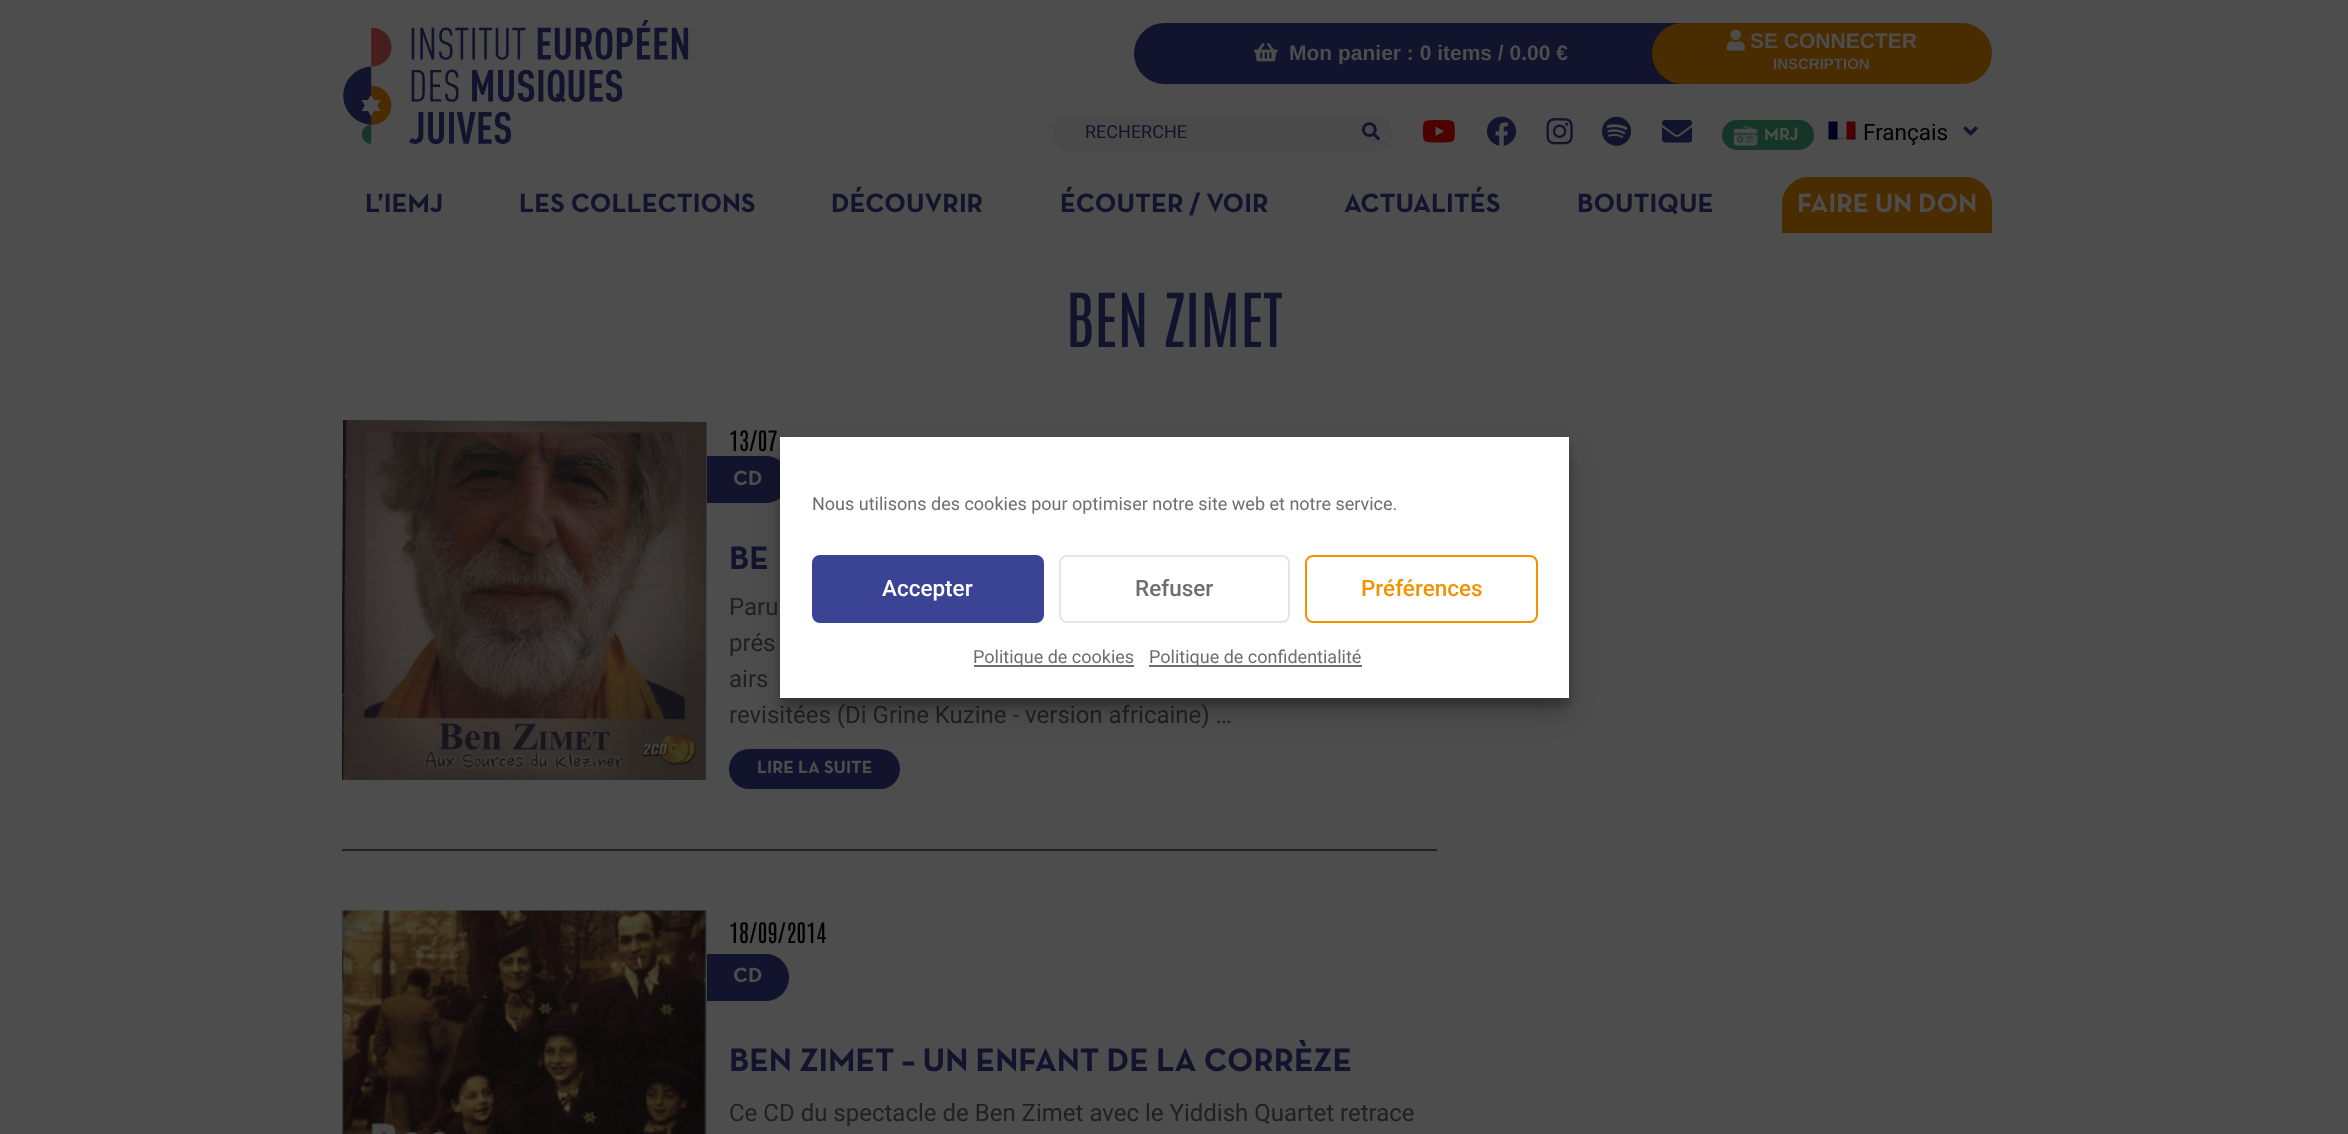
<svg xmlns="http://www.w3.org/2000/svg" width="2348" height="1134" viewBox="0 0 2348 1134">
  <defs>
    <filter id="blur1" x="-50%" y="-200%" width="200%" height="500%"><feGaussianBlur stdDeviation="4.5"/></filter>
    <filter id="blur2" x="-50%" y="-200%" width="200%" height="500%"><feGaussianBlur stdDeviation="15"/></filter>
  </defs>
  <rect width="100%" height="100%" fill="#4d4d4d"/>
  <image x="343" y="20" width="346" height="124" href="img1.png"/>
  <rect x="1134" y="23" width="585" height="61" rx="30.5" fill="#12142d"/>
  <image x="1254" y="42" width="24" height="20" href="img2.png"/>
  <text x="1289" y="60" font-family="Liberation Sans" font-size="21" font-weight="bold" fill="#4d4d4d">Mon panier : 0 items / 0.00 €</text>
  <rect x="1652" y="23" width="340" height="61" rx="30.5" fill="#492c00"/>
  <image x="1726" y="29" width="19" height="22" href="img3.png"/>
  <text x="1750" y="48" font-family="Liberation Sans" font-size="21" font-weight="bold" fill="#4d4d4d">SE CONNECTER</text>
  <text x="1773" y="69" font-family="Liberation Sans" font-size="15" font-weight="bold" fill="#4d4d4d">INSCRIPTION</text>
  <path d="M1349 114H1373C1383.5 114 1392 122.5 1392 133C1392 143.5 1383.5 152 1373 152H1349Z" fill="#4a4a4a"/>
  <path d="M1072 115H1349V151H1072C1062 151 1054 143 1054 133C1054 123 1062 115 1072 115Z" fill="#4a4a4a" stroke="#4a4a4a" stroke-width="2"/>
  <text x="1085" y="138" font-family="Roboto" font-size="18" fill="#12142d">RECHERCHE</text>
  <image x="1362" y="122" width="18" height="19" href="img4.png"/>
  <image x="1422" y="120" width="33" height="23" href="img5.png"/>
  <image x="1487" y="116" width="29" height="30" href="img6.png"/>
  <image x="1546" y="118" width="27" height="27" href="img7.png"/>
  <image x="1602" y="116" width="30" height="30" href="img8.png"/>
  <image x="1662" y="120" width="30" height="23" href="img9.png"/>
  <rect x="1722" y="120" width="92" height="30" rx="15" fill="#153526"/>
  <image x="1734" y="126" width="24" height="20" href="img10.png"/>
  <text x="1764" y="140" font-family="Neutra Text" font-size="18" font-weight="bold" fill="#4d4d4d">MRJ</text>
  <image x="1828" y="121" width="28" height="19" href="img11.png"/>
  <text x="1863" y="140" font-family="Roboto" font-size="22.5" fill="#000000">Français</text>
  <image x="1963" y="126" width="15" height="10" href="img12.png"/>
  <text x="365" y="212" font-family="Neutra Text" font-size="27" font-weight="bold" fill="#12142d">L’IEMJ</text>
  <text x="519" y="212" font-family="Neutra Text" font-size="27" font-weight="bold" fill="#12142d">LES COLLECTIONS</text>
  <text x="831" y="212" font-family="Neutra Text" font-size="27" font-weight="bold" fill="#12142d">DÉCOUVRIR</text>
  <text x="1060" y="212" font-family="Neutra Text" font-size="27" font-weight="bold" fill="#12142d">ÉCOUTER / VOIR</text>
  <text x="1344" y="212" font-family="Neutra Text" font-size="27" font-weight="bold" fill="#12142d">ACTUALITÉS</text>
  <text x="1577" y="212" font-family="Neutra Text" font-size="27" font-weight="bold" fill="#12142d">BOUTIQUE</text>
  <path d="M1809 177H1965C1980 177 1992 189 1992 204V233H1782V204C1782 189 1794 177 1809 177Z" fill="#492c00"/>
  <text x="1797" y="212" font-family="Neutra Text" font-size="27" font-weight="bold" fill="#4d4d4d">FAIRE UN DON</text>
  <text x="1066" y="347" font-family="Antonio" font-size="63" fill="#12142d">BEN ZIMET</text>
  <rect x="342" y="849" width="1095" height="2" fill="#222222"/>
  <image x="342" y="420" width="365" height="360" href="img13.png"/>
  <text x="729" y="451" font-family="Antonio" font-size="24" fill="#000000">13/07</text>
  <path d="M707 456H765.5C778.5 456 789 466.5 789 479.5C789 492.5 778.5 503 765.5 503H707Z" fill="#12142d"/>
  <text x="733" y="485" font-family="Neutra Text" font-size="21" font-weight="bold" fill="#4d4d4d">CD</text>
  <text x="729" y="569" font-family="Neutra Text" font-size="33" font-weight="bold" fill="#12142d">BE</text>
  <text x="729" y="615" font-family="Roboto" font-size="24" fill="#212121">Paru</text>
  <text x="729" y="651" font-family="Roboto" font-size="24" fill="#212121">prés</text>
  <text x="729" y="687" font-family="Roboto" font-size="24" fill="#212121">airs</text>
  <text x="729" y="723" font-family="Roboto" font-size="24" fill="#212121">revisitées (Di Grine Kuzine - version africaine) …</text>
  <rect x="729" y="749" width="171" height="40" rx="20" fill="#12142d"/>
  <text x="757" y="773" font-family="Neutra Text" font-size="18" font-weight="bold" fill="#4d4d4d">LIRE LA SUITE</text>
  <image x="342" y="910" width="365" height="224" href="img14.png"/>
  <text x="729" y="943" font-family="Antonio" font-size="24" fill="#000000">18/09/2014</text>
  <path d="M707 954H765.5C778.5 954 789 964.5 789 977.5C789 990.5 778.5 1001 765.5 1001H707Z" fill="#12142d"/>
  <text x="733" y="982" font-family="Neutra Text" font-size="21" font-weight="bold" fill="#4d4d4d">CD</text>
  <text x="729" y="1071" font-family="Neutra Text" font-size="33" font-weight="bold" fill="#12142d">BEN ZIMET – UN ENFANT DE LA CORRÈZE</text>
  <text x="729" y="1121" font-family="Roboto" font-size="24" fill="#212121">Ce CD du spectacle de Ben Zimet avec le Yiddish Quartet retrace</text>
  <rect x="780" y="446" width="789" height="261" fill="#000000" fill-opacity="0.23" filter="url(#blur1)"/>
  <rect x="780" y="452" width="789" height="261" fill="#000000" fill-opacity="0.19" filter="url(#blur2)"/>
  <rect x="780" y="437" width="789" height="261" fill="#ffffff"/>
  <text x="812" y="510" font-family="Roboto" font-size="18" fill="#6e6e6e">Nous utilisons des cookies pour optimiser notre site web et notre service.</text>
  <rect x="813" y="556" width="230" height="66" rx="7" fill="#3b4395" stroke="#3b4395" stroke-width="2"/>
  <text x="882" y="596" font-family="Roboto" font-size="22.5" font-weight="500" fill="#ffffff">Accepter</text>
  <rect x="1060" y="556" width="229" height="66" rx="7" fill="none" stroke="#e5e5e5" stroke-width="2"/>
  <text x="1135" y="596" font-family="Roboto" font-size="22.5" font-weight="500" fill="#6e6e6e">Refuser</text>
  <rect x="1306" y="556" width="231" height="66" rx="7" fill="none" stroke="#f39200" stroke-width="2"/>
  <text x="1361" y="596" font-family="Roboto" font-size="22.5" font-weight="500" fill="#f39200">Préférences</text>
  <rect x="974" y="665" width="160" height="2" fill="#6e6e6e"/>
  <text x="973" y="663" font-family="Roboto" font-size="18" fill="#6e6e6e">Politique de cookies</text>
  <rect x="1149" y="665" width="213" height="2" fill="#6e6e6e"/>
  <text x="1149" y="663" font-family="Roboto" font-size="18" fill="#6e6e6e">Politique de confidentialité</text>
</svg>
